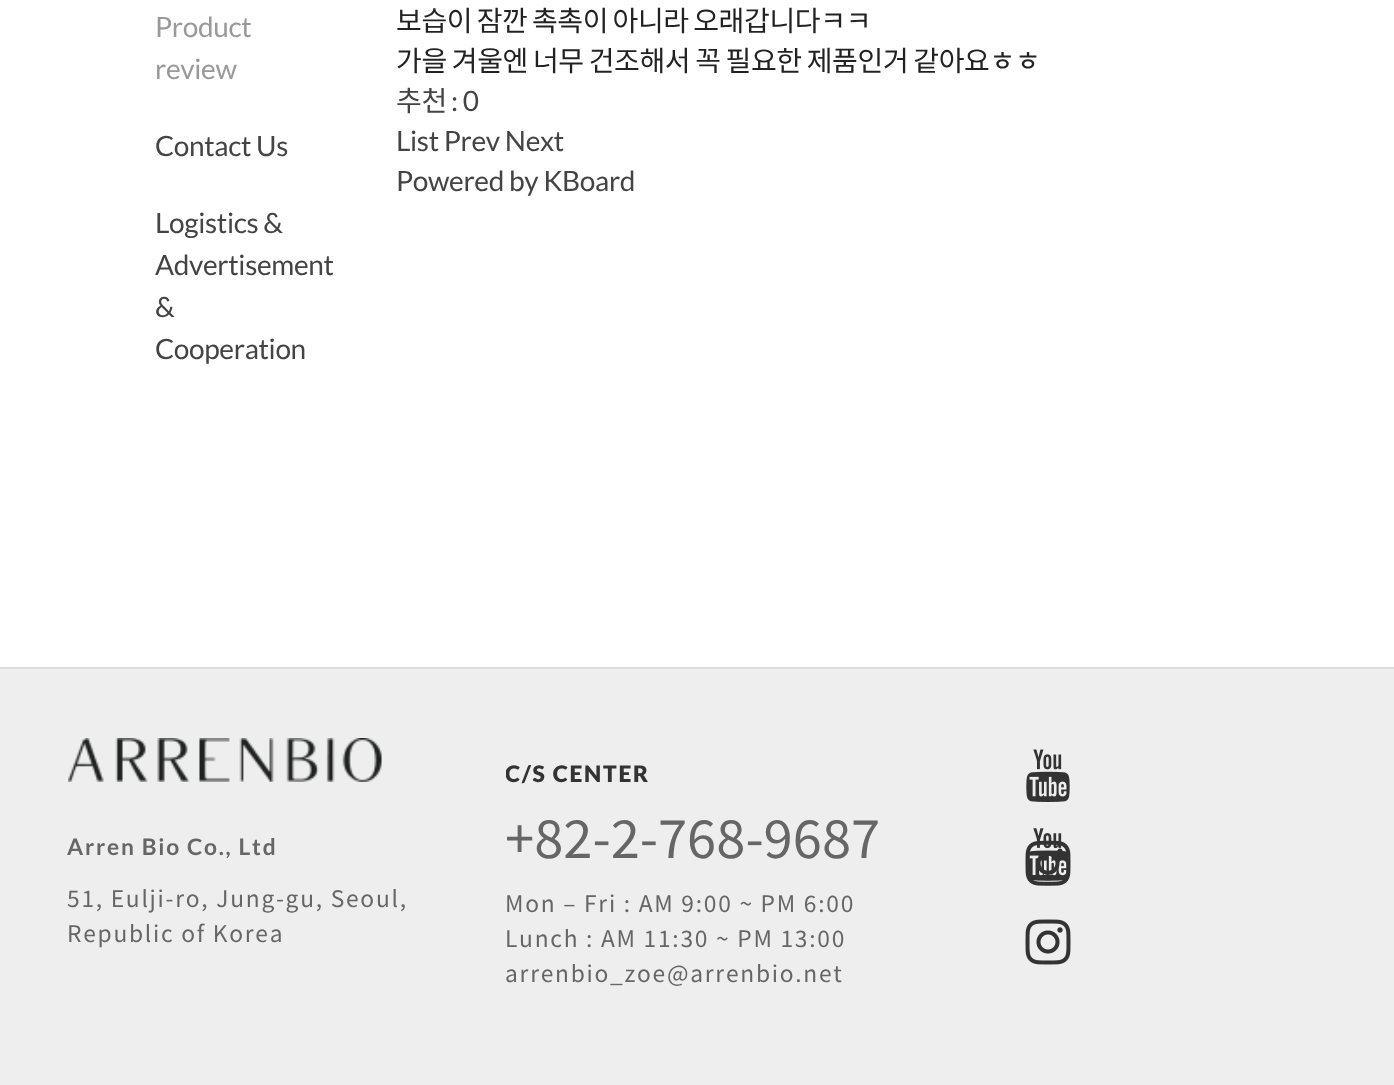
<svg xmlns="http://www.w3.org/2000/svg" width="1394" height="1085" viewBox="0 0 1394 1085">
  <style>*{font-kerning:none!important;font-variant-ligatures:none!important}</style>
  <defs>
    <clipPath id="clip1"><rect x="506" y="739" width="385" height="70"/></clipPath>
  </defs>
  <rect width="100%" height="100%" fill="#ffffff"/>
  <text x="155" y="37" font-family="Lato" font-size="28" letter-spacing="-0.35" fill="#999999">Product</text>
  <text x="155" y="79" font-family="Lato" font-size="28" letter-spacing="-0.35" fill="#999999">review</text>
  <text x="155" y="156" font-family="Lato" font-size="28" letter-spacing="-0.35" fill="#444444">Contact Us</text>
  <text x="155" y="233" font-family="Lato" font-size="28" letter-spacing="-0.35" fill="#444444">Logistics &amp;</text>
  <text x="155" y="275" font-family="Lato" font-size="28" letter-spacing="-0.35" fill="#444444">Advertisement</text>
  <text x="155" y="317" font-family="Lato" font-size="28" letter-spacing="-0.35" fill="#444444">&amp;</text>
  <text x="155" y="359" font-family="Lato" font-size="28" letter-spacing="-0.35" fill="#444444">Cooperation</text>
  <text x="396" y="31" word-spacing="-1.5" font-family="Noto Sans KR" font-size="28" letter-spacing="-0.35" fill="#222222">보습이 잠깐 촉촉이 아니라 오래갑니다ㅋㅋ</text>
  <text x="396" y="71" word-spacing="-1" font-family="Noto Sans KR" font-size="28" letter-spacing="-0.35" fill="#222222">가을 겨울엔 너무 건조해서 꼭 필요한 제품인거 같아요ㅎㅎ</text>
  <text x="396" y="111" font-family="Noto Sans KR" font-size="28" letter-spacing="-0.35" fill="#444444">추천</text>
  <text x="451" y="111" font-family="Lato" font-size="28" letter-spacing="-0.35" fill="#444444">: 0</text>
  <text x="396" y="151" font-family="Lato" font-size="28" letter-spacing="-0.35" fill="#444444">List Prev Next</text>
  <text x="396" y="191" font-family="Lato" font-size="28" letter-spacing="-0.35" fill="#444444">Powered by KBoard</text>
  <rect x="0" y="669" width="1394" height="416" fill="#eeeeee"/>
  <rect x="0" y="667" width="1394" height="2" fill="#dddddd"/>
  <image x="68" y="738" width="314" height="44" href="img1.png"/>
  <text x="67" y="855" font-family="Lato" font-size="22.75" font-weight="bold" letter-spacing="1.75" fill="#666666">Arren Bio Co., Ltd</text>
  <text x="67" y="907" font-family="Noto Sans KR" font-size="22.75" letter-spacing="1.75" fill="#666666">51, Eulji-ro, Jung-gu, Seoul,</text>
  <text x="67" y="942" font-family="Noto Sans KR" font-size="22.75" letter-spacing="1.75" fill="#666666">Republic of Korea</text>
  <g clip-path="url(#clip1)">
    <text x="505" y="782" font-family="Lato" font-size="22.75" font-weight="900" letter-spacing="1.75" fill="#333333">C/S CENTER</text>
  </g>
  <text x="505" y="858" font-family="Noto Sans KR" font-size="52.5" fill="#666666">+82-2-768-9687</text>
  <text x="505" y="912" font-family="Noto Sans KR" font-size="22.75" letter-spacing="1.75" fill="#666666">Mon – Fri : AM 9:00 ~ PM 6:00</text>
  <text x="505" y="947" font-family="Noto Sans KR" font-size="22.75" letter-spacing="1.75" fill="#666666">Lunch : AM 11:30 ~ PM 13:00</text>
  <text x="505" y="982" font-family="Noto Sans KR" font-size="22.75" letter-spacing="1.75" fill="#666666">arrenbio_zoe@arrenbio.net</text>
  <image x="1026" y="749" width="44" height="53" href="img2.png"/>
  <image x="1026" y="828" width="44" height="53" href="img3.png"/>
  <image x="1025" y="840" width="46" height="46" href="img4.png"/>
  <image x="1025" y="919" width="46" height="46" href="img5.png"/>
</svg>
